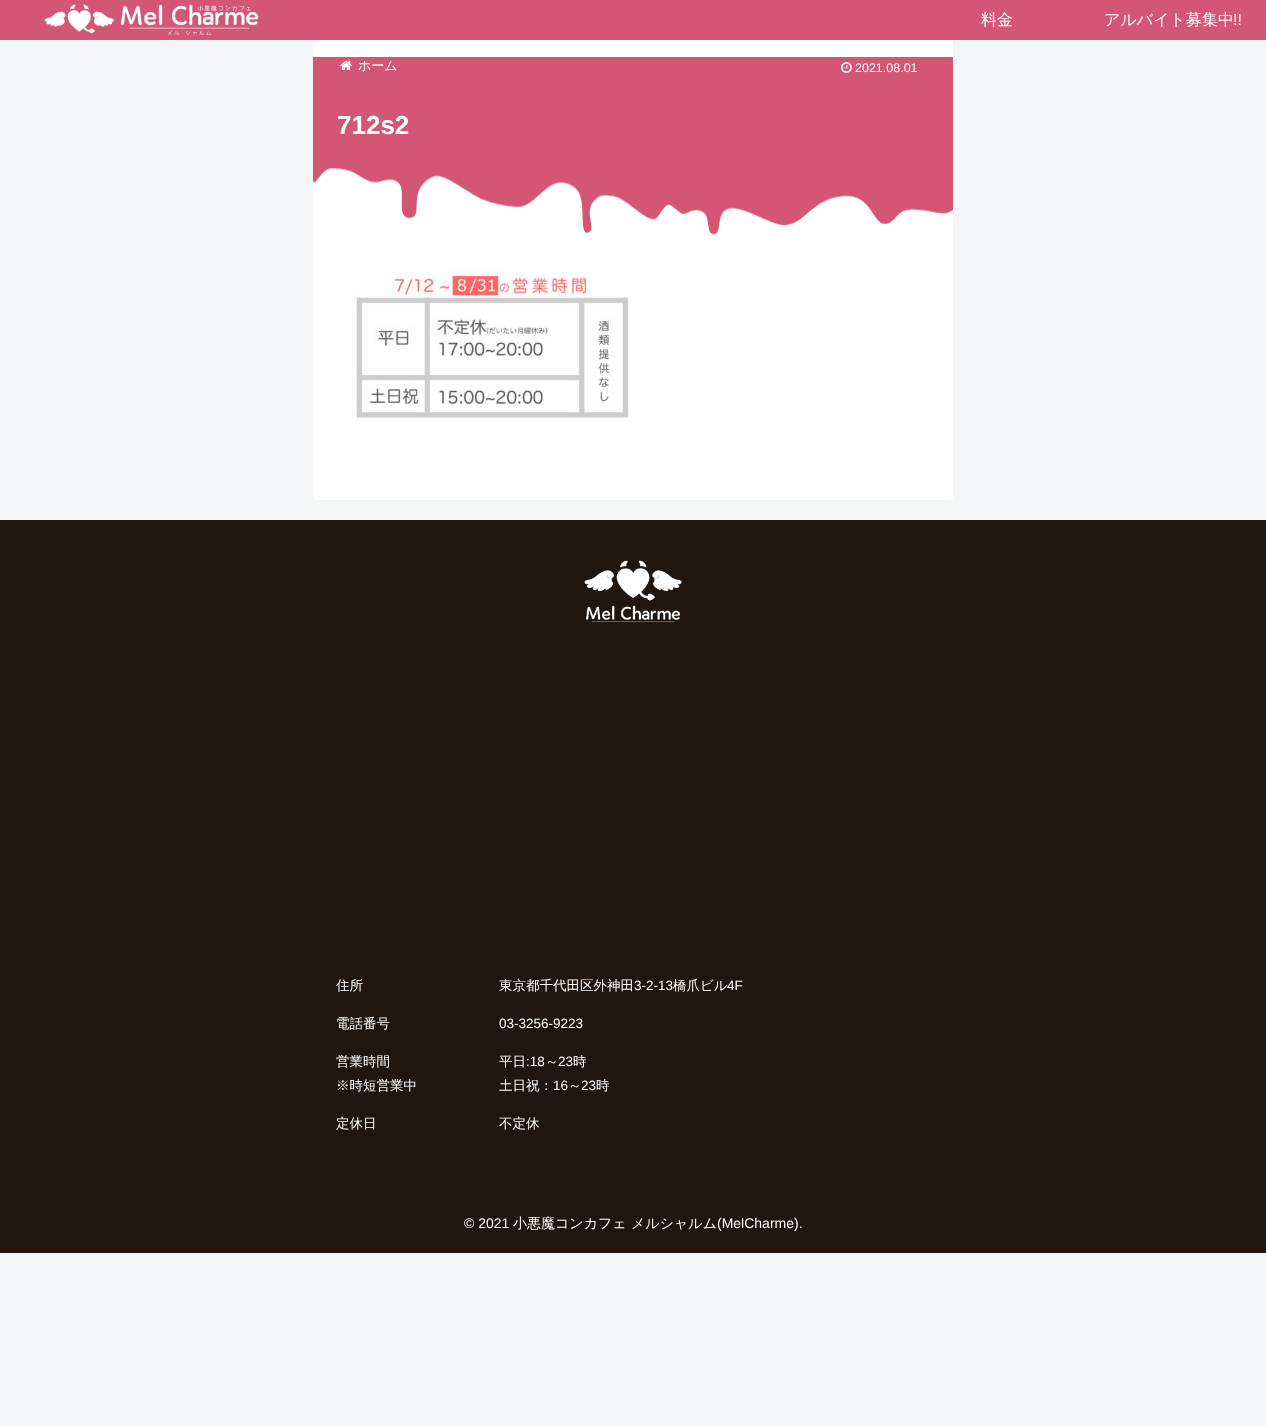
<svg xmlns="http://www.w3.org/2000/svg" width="1266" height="1426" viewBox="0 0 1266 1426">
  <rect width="100%" height="100%" fill="#f4f5f7"/>
  <rect x="0" y="0" width="1266" height="40" fill="#d35675"/>
  <image x="44" y="4" width="215" height="31" href="img1.png"/>
  <text x="981" y="25" font-family="WenQuanYi Zen Hei" font-size="16" font-weight="500" fill="#ffffff">料金</text>
  <text x="1104" y="25" font-family="WenQuanYi Zen Hei" font-size="16" font-weight="500" fill="#ffffff">アルバイト募集中</text>
  <text x="1233" y="25" font-family="Liberation Sans" font-size="16" fill="#ffffff">!!</text>
  <rect x="313" y="40" width="640" height="460" rx="4" fill="#ffffff"/>
  <rect x="313" y="57" width="640" height="85" fill="#d35675"/>
  <image x="340" y="60" width="12" height="10" href="img2.png"/>
  <text x="358" y="70" font-family="WenQuanYi Zen Hei" font-size="13" font-weight="500" fill="#ffffff">ホーム</text>
  <image x="841" y="62" width="11" height="11" href="img3.png"/>
  <text x="855" y="72" font-family="Liberation Sans" font-size="12.5" fill="#ffffff">2021.08.01</text>
  <text x="337" y="134" font-family="Liberation Sans" font-size="26" font-weight="bold" fill="#ffffff">712s2</text>
  <image x="313" y="142" width="640" height="92" href="img4.png"/>
  <image x="352" y="270" width="277" height="149" href="img5.png"/>
  <rect x="0" y="520" width="1266" height="733" fill="#1f160f"/>
  <image x="584" y="560" width="98" height="64" href="img6.png"/>
  <text x="336" y="990" font-family="WenQuanYi Zen Hei" font-size="13.5" font-weight="500" fill="#ffffff">住所</text>
  <text x="499" y="990" font-family="WenQuanYi Zen Hei" font-size="13.5" font-weight="500" fill="#ffffff">東京都千代田区外神田</text>
  <text x="634" y="990" font-family="Liberation Sans" font-size="13.5" fill="#ffffff">3-2-13</text>
  <text x="673" y="990" font-family="WenQuanYi Zen Hei" font-size="13.5" font-weight="500" fill="#ffffff">橋爪ビル</text>
  <text x="727" y="990" font-family="Liberation Sans" font-size="13.5" fill="#ffffff">4F</text>
  <text x="336" y="1028" font-family="WenQuanYi Zen Hei" font-size="13.5" font-weight="500" fill="#ffffff">電話番号</text>
  <text x="499" y="1028" font-family="Liberation Sans" font-size="13.5" fill="#ffffff">03-3256-9223</text>
  <text x="336" y="1066" font-family="WenQuanYi Zen Hei" font-size="13.5" font-weight="500" fill="#ffffff">営業時間</text>
  <text x="336" y="1090" font-family="WenQuanYi Zen Hei" font-size="13.5" font-weight="500" fill="#ffffff">※時短営業中</text>
  <text x="499" y="1066" font-family="WenQuanYi Zen Hei" font-size="13.5" font-weight="500" fill="#ffffff">平日</text>
  <text x="526" y="1066" font-family="Liberation Sans" font-size="13.5" fill="#ffffff">:18</text>
  <text x="545" y="1066" font-family="WenQuanYi Zen Hei" font-size="13.5" font-weight="500" fill="#ffffff">～</text>
  <text x="558" y="1066" font-family="Liberation Sans" font-size="13.5" fill="#ffffff">23</text>
  <text x="573" y="1066" font-family="WenQuanYi Zen Hei" font-size="13.5" font-weight="500" fill="#ffffff">時</text>
  <text x="499" y="1090" font-family="WenQuanYi Zen Hei" font-size="13.5" font-weight="500" fill="#ffffff">土日祝：</text>
  <text x="553" y="1090" font-family="Liberation Sans" font-size="13.5" fill="#ffffff">16</text>
  <text x="568" y="1090" font-family="WenQuanYi Zen Hei" font-size="13.5" font-weight="500" fill="#ffffff">～</text>
  <text x="581" y="1090" font-family="Liberation Sans" font-size="13.5" fill="#ffffff">23</text>
  <text x="596" y="1090" font-family="WenQuanYi Zen Hei" font-size="13.5" font-weight="500" fill="#ffffff">時</text>
  <text x="336" y="1128" font-family="WenQuanYi Zen Hei" font-size="13.5" font-weight="500" fill="#ffffff">定休日</text>
  <text x="499" y="1128" font-family="WenQuanYi Zen Hei" font-size="13.5" font-weight="500" fill="#ffffff">不定休</text>
  <text x="464" y="1228" font-family="Liberation Sans" font-size="14" fill="#ffffff">© 2021</text>
  <text x="513" y="1228" font-family="WenQuanYi Zen Hei" font-size="14" font-weight="500" fill="#ffffff">小悪魔コンカフェ</text>
  <text x="631" y="1228" font-family="WenQuanYi Zen Hei" font-size="14" font-weight="500" fill="#ffffff">メルシャルム</text>
  <text x="717" y="1228" font-family="Liberation Sans" font-size="14" fill="#ffffff">(MelCharme).</text>
</svg>
